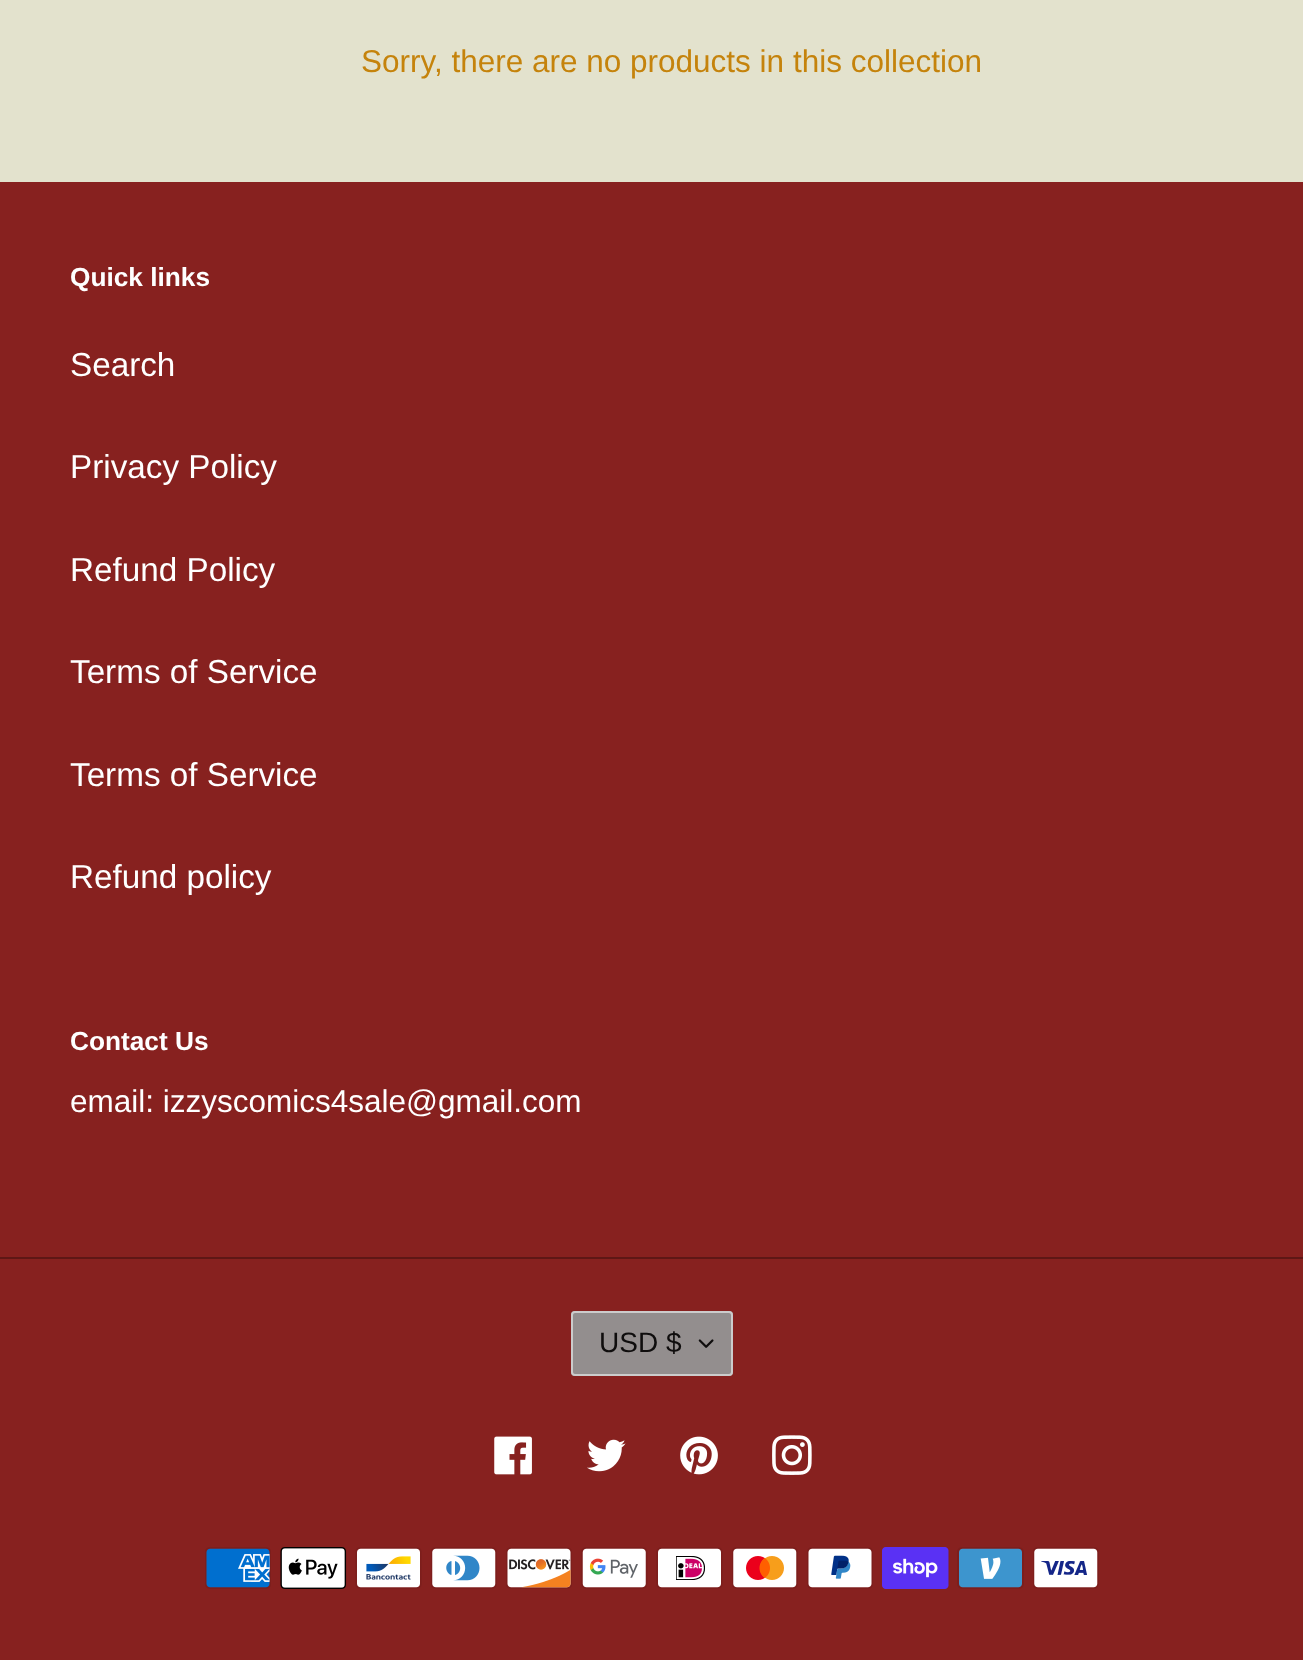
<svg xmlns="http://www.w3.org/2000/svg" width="1303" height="1660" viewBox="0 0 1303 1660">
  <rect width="100%" height="100%" fill="#e3e2cd"/>
  <text x="361" y="72" font-family="Liberation Sans" font-size="31.5" fill="#c5830c">Sorry, there are no products in this collection</text>
  <rect x="0" y="182" width="1303" height="1478" fill="#87211f"/>
  <text x="70" y="286" font-family="Liberation Sans" font-size="26.25" font-weight="bold" fill="#ffffff">Quick links</text>
  <text x="70" y="376" font-family="Liberation Sans" font-size="33.25" fill="#ffffff">Search</text>
  <text x="70" y="478" font-family="Liberation Sans" font-size="33.25" fill="#ffffff">Privacy Policy</text>
  <text x="70" y="581" font-family="Liberation Sans" font-size="33.25" fill="#ffffff">Refund Policy</text>
  <text x="70" y="683" font-family="Liberation Sans" font-size="33.25" fill="#ffffff">Terms of Service</text>
  <text x="70" y="786" font-family="Liberation Sans" font-size="33.25" fill="#ffffff">Terms of Service</text>
  <text x="70" y="888" font-family="Liberation Sans" font-size="33.25" fill="#ffffff">Refund policy</text>
  <text x="70" y="1050" font-family="Liberation Sans" font-size="26.25" font-weight="bold" fill="#ffffff">Contact Us</text>
  <text x="70" y="1112" font-family="Liberation Sans" font-size="31.5" fill="#ffffff">email: izzyscomics4sale@gmail.com</text>
  <rect x="0" y="1257" width="1303" height="2" fill="#5e1715"/>
  <rect x="571" y="1311" width="162" height="65" rx="4" fill="#938e8e"/>
  <image x="698" y="1339" width="16" height="9" href="img1.png"/>
  <rect x="572" y="1312" width="160" height="63" rx="3" fill="none" stroke="#cccccc" stroke-width="2"/>
  <text x="599" y="1352" font-family="Liberation Sans" font-size="28" fill="#0f0d0d">USD $</text>
  <image x="494" y="1436" width="38" height="39" href="img2.png"/>
  <image x="587" y="1439" width="39" height="33" href="img3.png"/>
  <image x="680" y="1436" width="38" height="39" href="img4.png"/>
  <image x="772" y="1435" width="40" height="40" href="img5.png"/>
  <image x="205" y="1547" width="66" height="42" href="img6.png"/>
  <image x="280" y="1547" width="67" height="42" href="img7.png"/>
  <image x="355" y="1547" width="67" height="42" href="img8.png"/>
  <image x="431" y="1547" width="66" height="42" href="img9.png"/>
  <image x="506" y="1547" width="66" height="42" href="img10.png"/>
  <image x="581" y="1547" width="67" height="42" href="img11.png"/>
  <image x="656" y="1547" width="67" height="42" href="img12.png"/>
  <image x="732" y="1547" width="66" height="42" href="img13.png"/>
  <image x="807" y="1547" width="66" height="42" href="img14.png"/>
  <image x="882" y="1547" width="67" height="42" href="img15.png"/>
  <image x="957" y="1547" width="67" height="42" href="img16.png"/>
  <image x="1033" y="1547" width="66" height="42" href="img17.png"/>
</svg>
